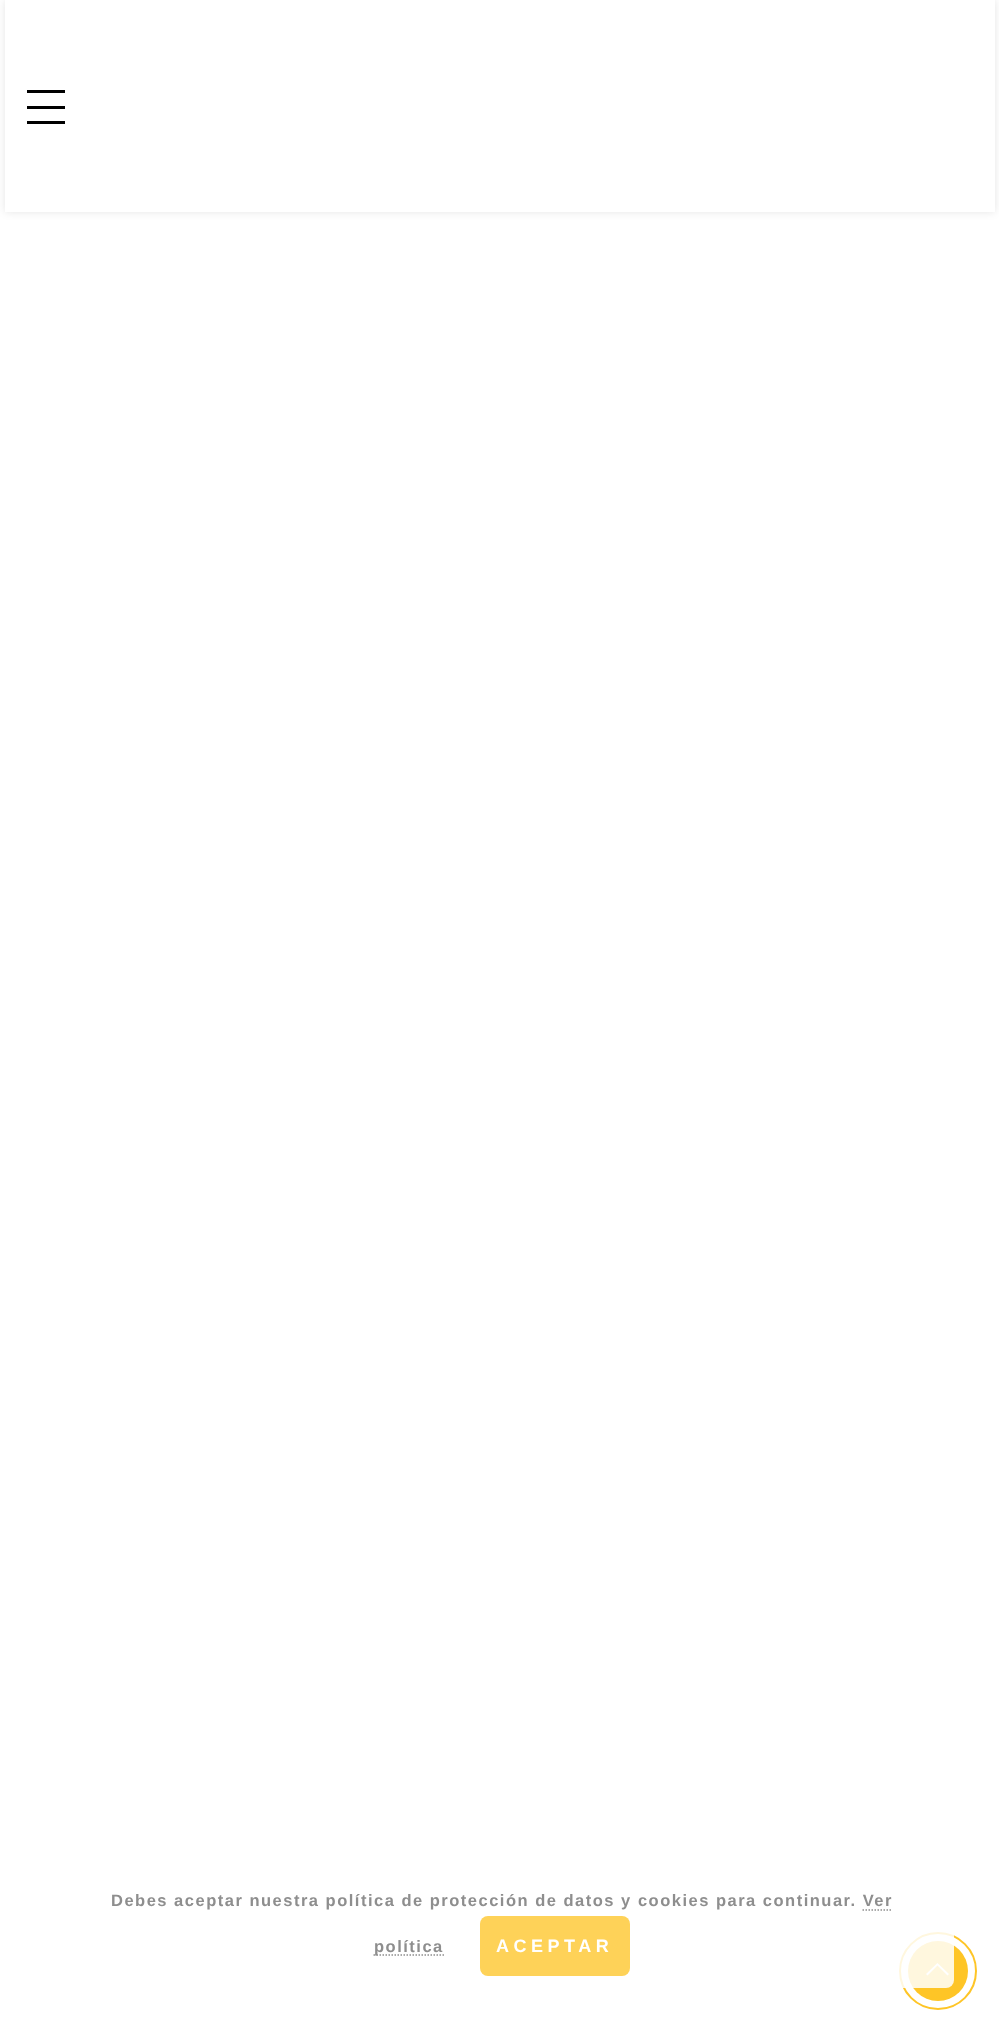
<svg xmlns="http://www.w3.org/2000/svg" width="999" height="2032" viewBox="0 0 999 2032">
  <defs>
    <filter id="blur1" x="-50%" y="-200%" width="200%" height="500%"><feGaussianBlur stdDeviation="4"/></filter>
  </defs>
  <rect width="100%" height="100%" fill="#ffffff"/>
  <rect x="5" y="0" width="990" height="212" fill="#000000" fill-opacity="0.1" filter="url(#blur1)"/>
  <rect x="5" y="0" width="990" height="212" fill="#ffffff"/>
  <rect x="27" y="90" width="38" height="3" fill="#000000"/>
  <rect x="27" y="106" width="38" height="3" fill="#000000"/>
  <rect x="27" y="121" width="38" height="3" fill="#000000"/>
  <circle cx="938" cy="1971" r="38" fill="none" stroke="#fec526" stroke-width="2"/>
  <circle cx="938" cy="1971" r="30" fill="#fec526"/>
  <path d="M939 1964.5L937.5 1963L926 1974L927.5 1975.5L937.5 1965.5L947.5 1975.5L949 1974Z" fill="#ffffff"/>
  <rect x="50" y="1875" width="904" height="113" rx="8" fill="#ffffff" fill-opacity="0.85"/>
  <text x="111" y="1906" font-family="Liberation Sans" font-size="16.5" font-weight="bold" letter-spacing="1.5" fill="#8e8e8e">Debes aceptar nuestra política de protección de datos y cookies para continuar. Ver</text>
  <path d="M373.5 1955H444" fill="none" stroke="#8e8e8e" stroke-width="1.5" stroke-dasharray="1.5 1.5"/>
  <text x="374" y="1952" font-family="Liberation Sans" font-size="16.5" font-weight="bold" letter-spacing="1.5" fill="#8e8e8e">política</text>
  <path d="M862.5 1910H892.5" fill="none" stroke="#8e8e8e" stroke-width="1.5" stroke-dasharray="1.5 1.5"/>
  <rect x="480" y="1916" width="150" height="60" rx="8" fill="#fed258"/>
  <text x="496" y="1952" font-family="Liberation Sans" font-size="18" font-weight="bold" letter-spacing="4.5" fill="#ffffff">ACEPTAR</text>
</svg>
